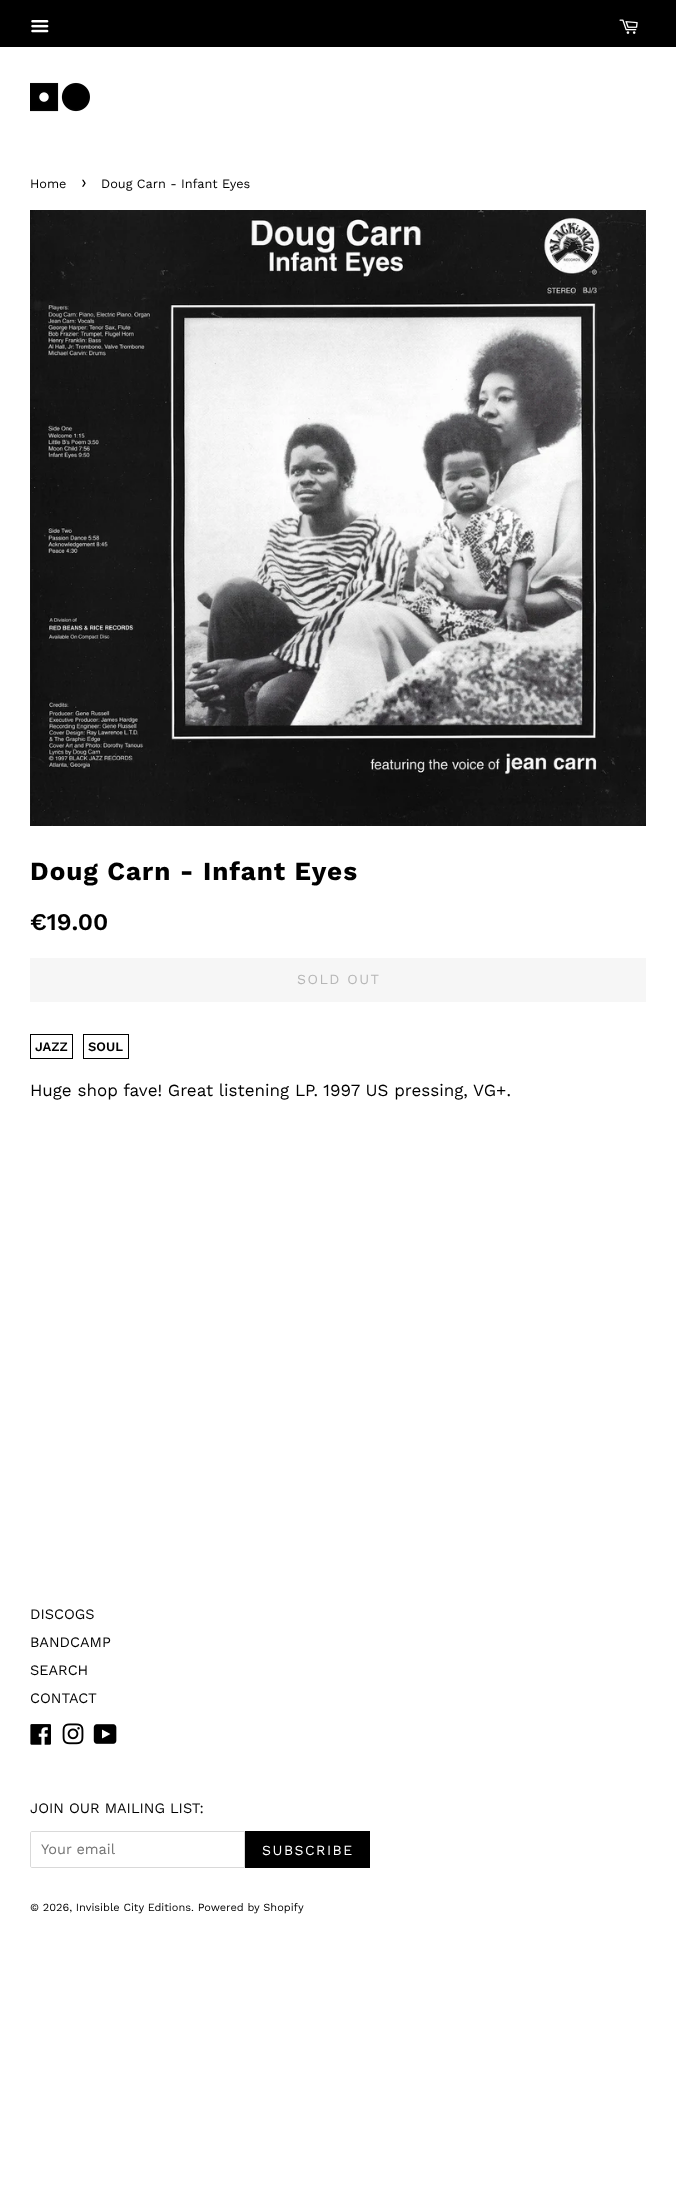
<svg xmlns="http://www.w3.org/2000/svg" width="676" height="2202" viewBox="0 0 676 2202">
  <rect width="100%" height="100%" fill="#ffffff"/>
  <rect x="0" y="0" width="676" height="47" fill="#000000"/>
  <image x="31" y="20" width="18" height="13" href="img1.png"/>
  <image x="619" y="19" width="19" height="15" href="img2.png"/>
  <image x="30" y="82" width="60" height="30" href="img3.png"/>
  <text x="30" y="188" font-family="Work Sans" font-size="12.75" fill="#000000">Home</text>
  <text x="81" y="188" font-family="Work Sans" font-size="18" fill="#000000">›</text>
  <text x="101" y="188" font-family="Work Sans" font-size="12.75" fill="#000000">Doug Carn - Infant Eyes</text>
  <image x="30" y="210" width="616" height="616" href="img4.png"/>
  <text x="30" y="880" font-family="Work Sans" font-size="26" font-weight="bold" letter-spacing="1" fill="#000000">Doug Carn - Infant Eyes</text>
  <text x="30" y="930" font-family="Work Sans" font-size="24" font-weight="600" fill="#000000">€19.00</text>
  <rect x="30" y="958" width="616" height="44" fill="#f6f6f6"/>
  <text x="297" y="984" font-family="Work Sans" font-size="14" letter-spacing="1.5" fill="#b6b6b6">SOLD OUT</text>
  <rect x="30.5" y="1034.5" width="42" height="24" fill="none" stroke="#000000"/>
  <text x="35" y="1051" font-family="Work Sans" font-size="13" font-weight="600" fill="#000000">JAZZ</text>
  <rect x="83.5" y="1034.5" width="45" height="24" fill="none" stroke="#000000"/>
  <text x="88" y="1051" font-family="Work Sans" font-size="13" font-weight="600" fill="#000000">SOUL</text>
  <text x="30" y="1096" font-family="Work Sans" font-size="17" fill="#000000">Huge shop fave! Great listening LP. 1997 US pressing, VG+.</text>
  <text x="30" y="1619" font-family="Work Sans" font-size="14.5" fill="#000000">DISCOGS</text>
  <text x="30" y="1647" font-family="Work Sans" font-size="14.5" fill="#000000">BANDCAMP</text>
  <text x="30" y="1675" font-family="Work Sans" font-size="14.5" fill="#000000">SEARCH</text>
  <text x="30" y="1703" font-family="Work Sans" font-size="14.5" fill="#000000">CONTACT</text>
  <image x="30" y="1724" width="21" height="21" href="img5.png"/>
  <image x="62" y="1723" width="22" height="22" href="img6.png"/>
  <image x="93" y="1724" width="24" height="20" href="img7.png"/>
  <text x="30" y="1813" font-family="Work Sans" font-size="14.5" fill="#000000">JOIN OUR MAILING LIST:</text>
  <path d="M32 1831.5H244.5V1867.5H32C31 1867.5 30.5 1867 30.5 1866V1833C30.5 1832 31 1831.5 32 1831.5Z" fill="none" stroke="#d9d9d9"/>
  <text x="41" y="1854" font-family="Work Sans" font-size="14.5" fill="#757575">Your email</text>
  <rect x="245" y="1831" width="125" height="37" fill="#000000"/>
  <text x="262" y="1855" font-family="Work Sans" font-size="14" letter-spacing="1.5" fill="#ffffff">SUBSCRIBE</text>
  <text x="30" y="1911" font-family="Work Sans" font-size="11" fill="#000000">© 2026, Invisible City Editions. Powered by Shopify</text>
</svg>
